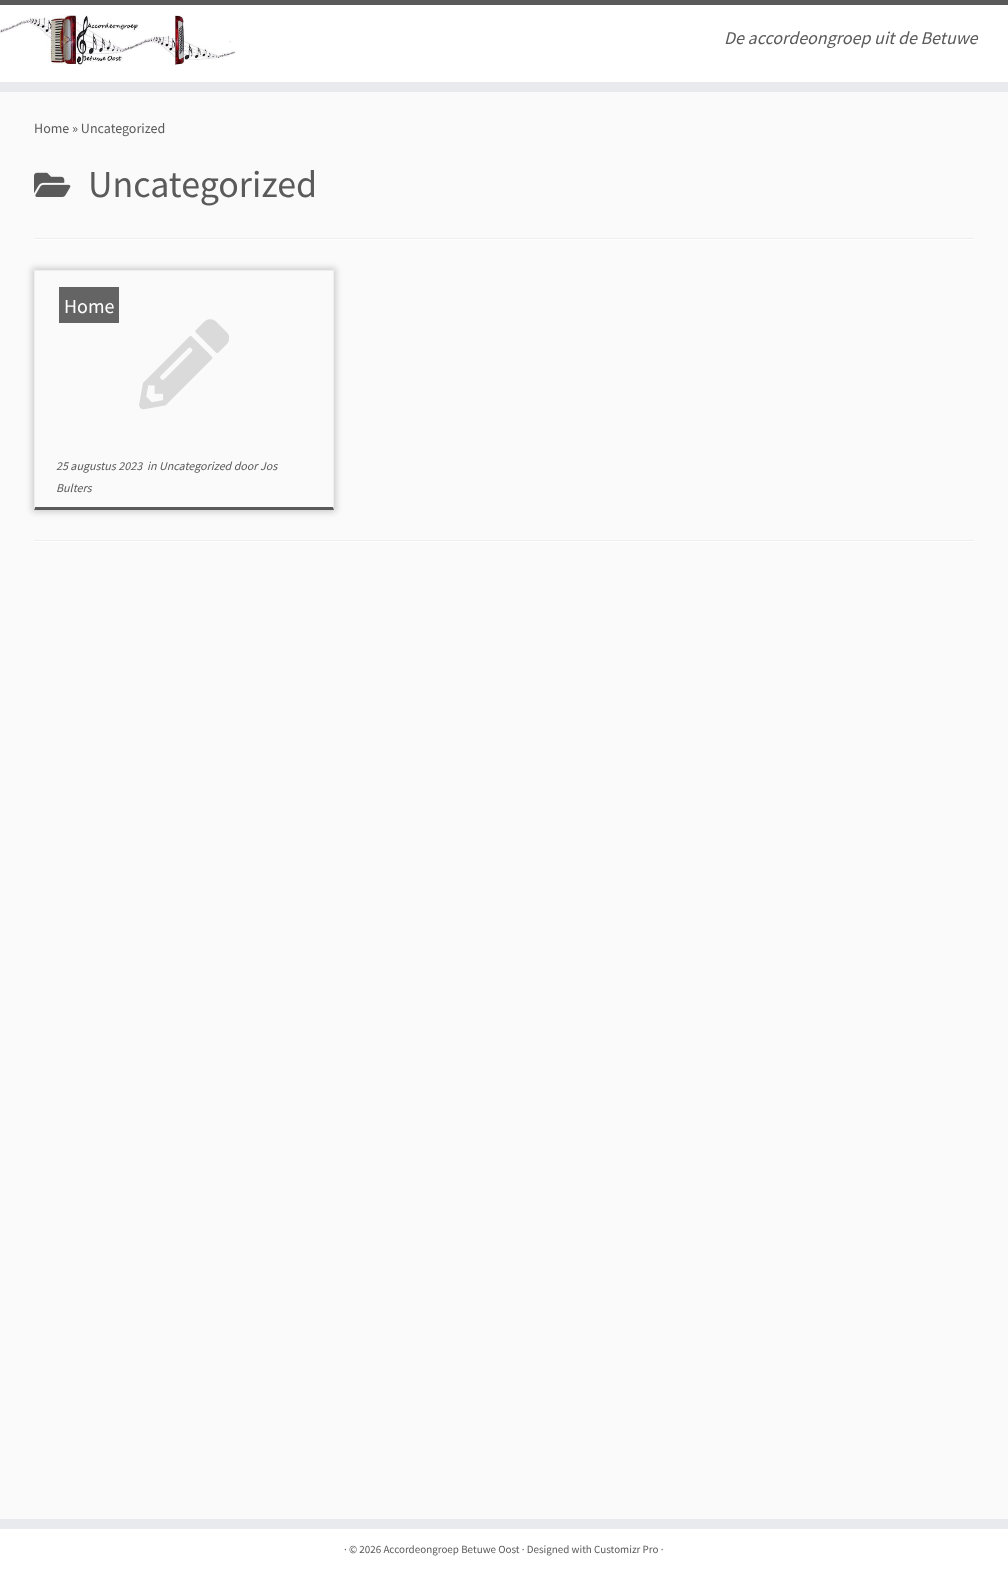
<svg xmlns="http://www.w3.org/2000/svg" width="1008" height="1581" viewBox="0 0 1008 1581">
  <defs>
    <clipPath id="clip1"><path d="M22 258H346V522H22ZM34 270H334V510H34Z" clip-rule="evenodd"/></clipPath>
    <filter id="blur1" x="-50%" y="-200%" width="200%" height="500%"><feGaussianBlur stdDeviation="3"/></filter>
  </defs>
  <rect width="100%" height="100%" fill="#fafafa"/>
  <rect x="0" y="5" width="1008" height="77" fill="#ffffff"/>
  <rect x="0" y="0" width="1008" height="5" fill="#5a5a5a"/>
  <rect x="0" y="82" width="1008" height="10" fill="#e9eaee"/>
  <image x="0" y="15" width="236" height="50" href="img1.png"/>
  <text x="724" y="44" font-family="Source Sans Pro" font-size="18" font-style="italic" fill="#5a5a5a">De accordeongroep uit de Betuwe</text>
  <text x="34" y="133" font-family="Source Sans Pro" font-size="14" fill="#5a5a5a">Home » Uncategorized</text>
  <image x="34" y="172" width="37" height="25" href="img2.png"/>
  <text x="88" y="197" font-family="Source Sans Pro" font-size="38" fill="#5a5a5a">Uncategorized</text>
  <rect x="34" y="238" width="940" height="1" fill="#eeeeee"/>
  <rect x="34" y="239" width="940" height="1" fill="#ffffff"/>
  <g clip-path="url(#clip1)">
    <rect x="32" y="268" width="304" height="244" fill="#cccccc" filter="url(#blur1)"/>
  </g>
  <rect x="34" y="270" width="300" height="1" fill="#eeeeee"/>
  <path d="M334 270V510L333 507V271Z" fill="#eeeeee"/>
  <path d="M334 510H34L35 507H333Z" fill="#5a5a5a"/>
  <path d="M34 510V270L35 271V507Z" fill="#eeeeee"/>
  <rect x="59" y="287" width="60" height="36" fill="#646464"/>
  <text x="64" y="313" font-family="Source Sans Pro" font-size="20" fill="#ffffff">Home</text>
  <image x="139" y="319" width="91" height="91" href="img3.png"/>
  <text x="56" y="470" font-family="Source Sans Pro" font-size="12" font-style="italic" fill="#5a5a5a">25 augustus 2023</text>
  <text x="147" y="470" font-family="Source Sans Pro" font-size="12" font-style="italic" fill="#5a5a5a">in Uncategorized door Jos</text>
  <text x="56" y="492" font-family="Source Sans Pro" font-size="12" font-style="italic" fill="#5a5a5a">Bulters</text>
  <rect x="34" y="540" width="940" height="1" fill="#eeeeee"/>
  <rect x="34" y="541" width="940" height="1" fill="#ffffff"/>
  <rect x="0" y="1519" width="1008" height="10" fill="#e9eaee"/>
  <rect x="0" y="1529" width="1008" height="52" fill="#ffffff"/>
  <text x="344" y="1553" font-family="Source Sans Pro" font-size="11" fill="#5a5a5a">· © 2026 Accordeongroep Betuwe Oost · Designed with Customizr Pro ·</text>
</svg>
